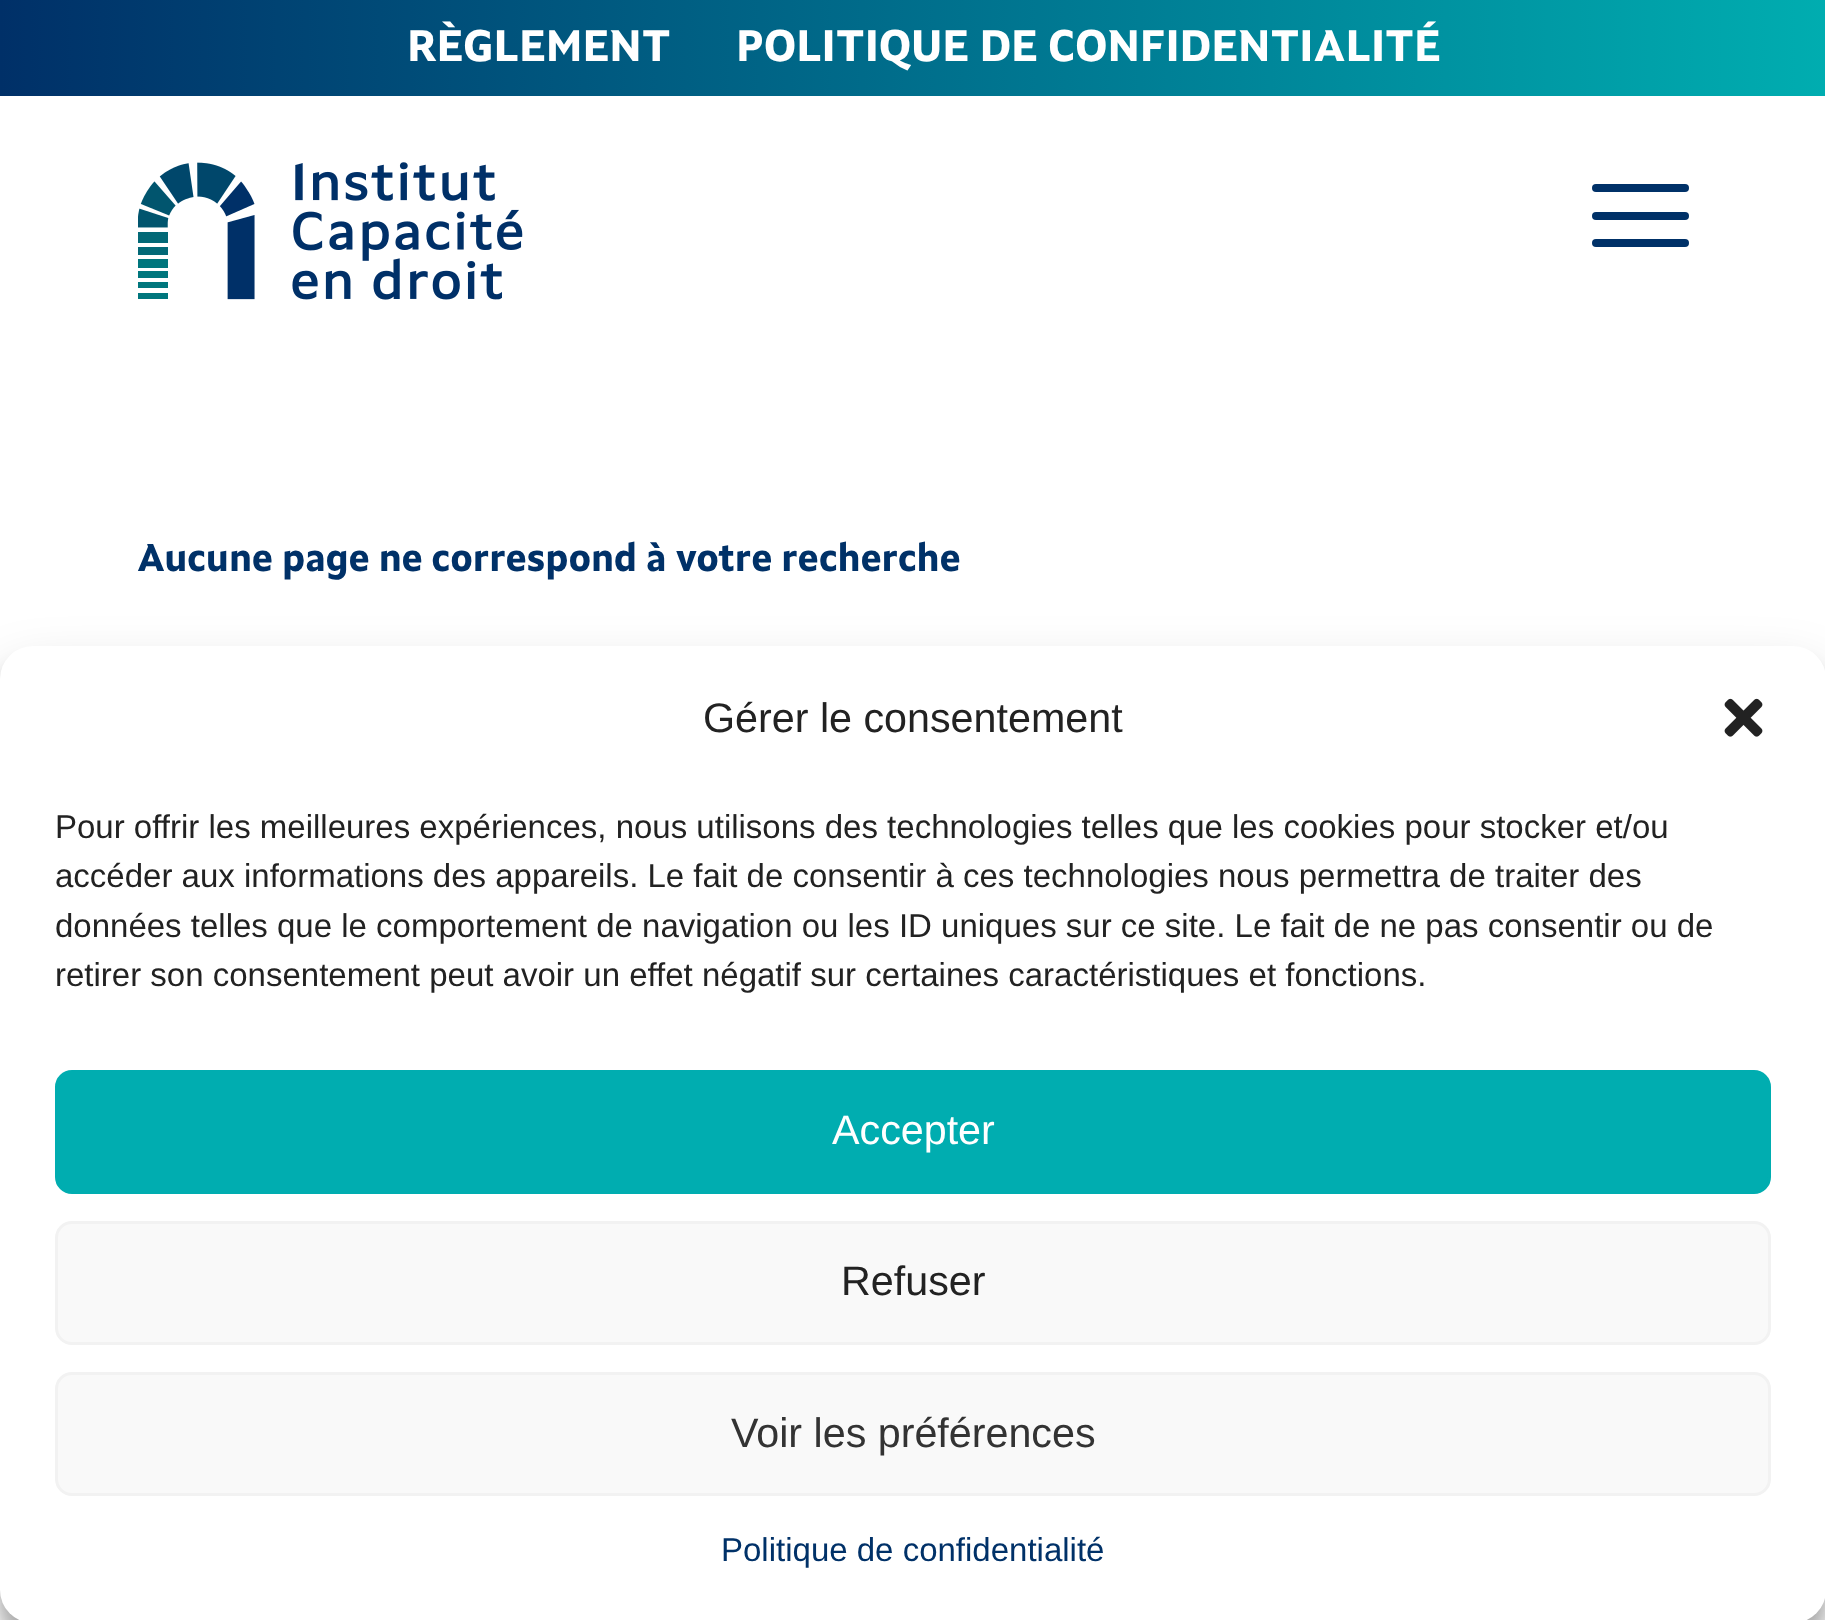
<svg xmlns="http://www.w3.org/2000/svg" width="1825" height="1620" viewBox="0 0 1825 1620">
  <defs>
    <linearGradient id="g1" gradientUnits="userSpaceOnUse" x1="0" y1="48" x2="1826" y2="48"><stop offset="0" stop-color="#003068"/><stop offset="1" stop-color="#00adb0"/></linearGradient>
    <filter id="blur1" x="-50%" y="-200%" width="200%" height="500%"><feGaussianBlur stdDeviation="8"/></filter>
    <filter id="blur2" x="-50%" y="-200%" width="200%" height="500%"><feGaussianBlur stdDeviation="27.5"/></filter>
  </defs>
  <rect width="100%" height="100%" fill="#ffffff"/>
  <rect x="0" y="0" width="1825" height="96" fill="url(#g1)"/>
  <text x="407" y="61" font-family="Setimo" font-size="44" font-weight="bold" fill="#ffffff">RÈGLEMENT</text>
  <text x="736" y="61" font-family="Setimo" font-size="44" font-weight="bold" fill="#ffffff">POLITIQUE DE CONFIDENTIALITÉ</text>
  <image x="138" y="162" width="385" height="138" href="img1.png"/>
  <rect x="1592" y="212" width="97" height="8" rx="4" fill="#003168"/>
  <rect x="1592" y="184" width="97" height="8" rx="4" fill="#003168"/>
  <rect x="1592" y="239" width="97" height="8" rx="4" fill="#003168"/>
  <text x="137" y="571" font-family="Setimo" font-size="38.5" font-weight="bold" fill="#003168">Aucune page ne correspond à votre recherche</text>
  <rect x="0" y="663" width="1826" height="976" rx="33" fill="#000000" fill-opacity="0.23" filter="url(#blur1)"/>
  <rect x="0" y="674" width="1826" height="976" rx="33" fill="#000000" fill-opacity="0.19" filter="url(#blur2)"/>
  <rect x="0" y="646" width="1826" height="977" rx="33" fill="#ffffff"/>
  <text x="703" y="732" font-family="Liberation Sans" font-size="41.25" fill="#222222">Gérer le consentement</text>
  <image x="1724" y="698" width="39" height="39" href="img2.png"/>
  <text x="55" y="838" font-family="Liberation Sans" font-size="33" fill="#222222">Pour offrir les meilleures expériences, nous utilisons des technologies telles que les cookies pour stocker et/ou</text>
  <text x="55" y="887" font-family="Liberation Sans" font-size="33" fill="#222222">accéder aux informations des appareils. Le fait de consentir à ces technologies nous permettra de traiter des</text>
  <text x="55" y="937" font-family="Liberation Sans" font-size="33" fill="#222222">données telles que le comportement de navigation ou les ID uniques sur ce site. Le fait de ne pas consentir ou de</text>
  <text x="55" y="986" font-family="Liberation Sans" font-size="33" fill="#222222">retirer son consentement peut avoir un effet négatif sur certaines caractéristiques et fonctions.</text>
  <rect x="56.5" y="1071.5" width="1713" height="121" rx="15.5" fill="#00adb0" stroke="#00adb0" stroke-width="3"/>
  <text x="832" y="1144" font-family="Liberation Sans" font-size="41.25" fill="#ffffff">Accepter</text>
  <rect x="56.5" y="1222.5" width="1713" height="121" rx="15.5" fill="#f9f9f9" stroke="#f2f2f2" stroke-width="3"/>
  <text x="841" y="1295" font-family="Liberation Sans" font-size="41.25" fill="#222222">Refuser</text>
  <rect x="56.5" y="1373.5" width="1713" height="121" rx="15.5" fill="#f9f9f9" stroke="#f2f2f2" stroke-width="3"/>
  <text x="731" y="1447" font-family="Liberation Sans" font-size="41.25" fill="#333333">Voir les préférences</text>
  <text x="721" y="1561" font-family="Liberation Sans" font-size="33" fill="#003168">Politique de confidentialité</text>
</svg>
